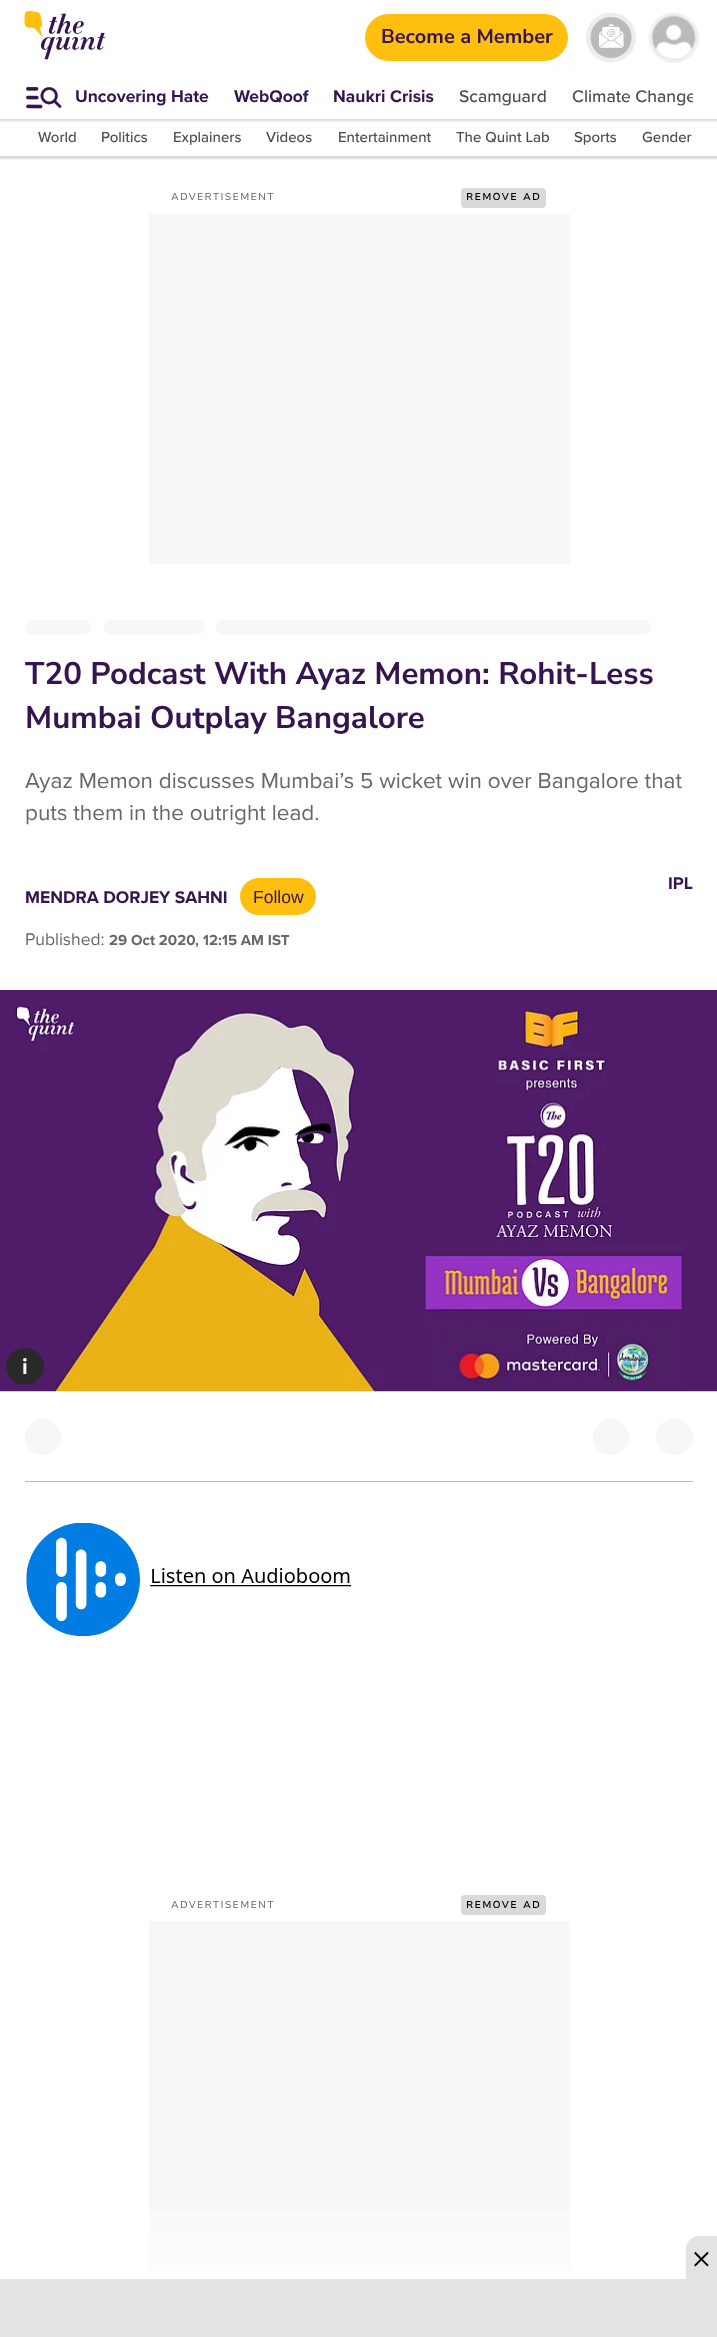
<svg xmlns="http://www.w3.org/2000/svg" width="717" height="2337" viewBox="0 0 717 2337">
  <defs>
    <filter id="blur1" x="-50%" y="-200%" width="200%" height="500%"><feGaussianBlur stdDeviation="1"/></filter>
    <clipPath id="clip1"><rect x="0" y="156" width="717" height="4"/></clipPath>
    <clipPath id="clip2"><rect x="63" y="75" width="630" height="44"/></clipPath>
    <linearGradient id="g1" gradientUnits="userSpaceOnUse" x1="359" y1="2145" x2="359" y2="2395"><stop offset="0" stop-color="#ffffff" stop-opacity="0"/><stop offset="0.8" stop-color="#ffffff"/></linearGradient>
  </defs>
  <rect width="100%" height="100%" fill="#ffffff"/>
  <image x="24" y="11" width="82" height="49" href="img1.png"/>
  <rect x="365" y="14" width="203" height="47" rx="23.5" fill="#febf0f"/>
  <text x="381" y="43" font-family="Nunito Sans" font-size="20" font-weight="bold" fill="#35144f">Become a Member</text>
  <image x="586" y="13" width="50" height="50" href="img2.png"/>
  <circle cx="674" cy="38" r="24.5" fill="#efefef" stroke="#efefef"/>
  <image x="648" y="12" width="48" height="48" href="img3.png"/>
  <rect x="-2" y="73" width="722" height="48" fill="#000000" fill-opacity="0.15" filter="url(#blur1)"/>
  <g clip-path="url(#clip1)">
    <rect x="-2" y="116" width="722" height="43" fill="#000000" fill-opacity="0.15" filter="url(#blur1)"/>
  </g>
  <rect x="0" y="72" width="717" height="47" fill="#ffffff"/>
  <image x="26" y="87" width="36" height="22" href="img4.png"/>
  <text x="75" y="102" font-family="Proxima Nova" font-size="17.5" font-weight="bold" fill="#35144f">Uncovering Hate</text>
  <text x="234" y="102" font-family="Proxima Nova" font-size="17.5" font-weight="bold" fill="#35144f">WebQoof</text>
  <text x="333" y="102" font-family="Proxima Nova" font-size="17.5" font-weight="bold" fill="#35144f">Naukri Crisis</text>
  <text x="459" y="102" font-family="Proxima Nova" font-size="17.5" font-weight="500" fill="#4d4d4d">Scamguard</text>
  <g clip-path="url(#clip2)">
    <text x="572" y="102" font-family="Proxima Nova" font-size="17.5" font-weight="500" fill="#4d4d4d">Climate Change</text>
  </g>
  <text x="38" y="142" font-family="Proxima Nova" font-size="15" font-weight="500" fill="#4d4d4d">World</text>
  <text x="101" y="142" font-family="Proxima Nova" font-size="15" font-weight="500" fill="#4d4d4d">Politics</text>
  <text x="173" y="142" font-family="Proxima Nova" font-size="15" font-weight="500" fill="#4d4d4d">Explainers</text>
  <text x="266" y="142" font-family="Proxima Nova" font-size="15" font-weight="500" fill="#4d4d4d">Videos</text>
  <text x="338" y="142" font-family="Proxima Nova" font-size="15" font-weight="500" fill="#4d4d4d">Entertainment</text>
  <text x="456" y="142" font-family="Proxima Nova" font-size="15" font-weight="500" fill="#4d4d4d">The Quint Lab</text>
  <text x="574" y="142" font-family="Proxima Nova" font-size="15" font-weight="500" fill="#4d4d4d">Sports</text>
  <text x="642" y="142" font-family="Proxima Nova" font-size="15" font-weight="500" fill="#4d4d4d">Gender</text>
  <text x="171" y="200" font-family="Nunito Sans" font-size="10" letter-spacing="1.25" fill="#676767">ADVERTISEMENT</text>
  <rect x="461" y="188" width="85" height="20" rx="4" fill="#d9d9d9"/>
  <text x="466" y="200" word-spacing="1" font-family="Nunito Sans" font-size="10" font-weight="600" letter-spacing="1.25" fill="#000000">REMOVE AD</text>
  <rect x="149" y="214" width="421" height="350" fill="#f7f7f7"/>
  <rect x="25" y="620" width="66" height="15" rx="7.5" fill="#f7f7f7"/>
  <rect x="104" y="620" width="100" height="15" rx="7.5" fill="#f7f7f7"/>
  <rect x="216" y="620" width="435" height="15" rx="7.5" fill="#f7f7f7"/>
  <rect x="25" y="1481" width="668" height="1" fill="#bababa"/>
  <text x="25" y="684" font-family="Nunito Sans" font-size="31.25" font-weight="bold" fill="#35144f">T20 Podcast With Ayaz Memon: Rohit-Less</text>
  <text x="25" y="728" font-family="Nunito Sans" font-size="31.25" font-weight="bold" fill="#35144f">Mumbai Outplay Bangalore</text>
  <text x="25" y="788" font-family="Proxima Nova" font-size="22.5" fill="#676767">Ayaz Memon discusses Mumbai’s 5 wicket win over Bangalore that</text>
  <text x="25" y="820" font-family="Proxima Nova" font-size="22.5" fill="#676767">puts them in the outright lead.</text>
  <text x="668" y="889" font-family="Proxima Nova" font-size="17.5" font-weight="bold" fill="#35144f">IPL</text>
  <text x="25" y="903" font-family="Proxima Nova" font-size="17.5" font-weight="bold" fill="#35144f">MENDRA DORJEY SAHNI</text>
  <rect x="240" y="878" width="76" height="37" rx="18.5" fill="#febf0f"/>
  <text x="253" y="903" font-family="Liberation Sans" font-size="17.5" fill="#35144f">Follow</text>
  <text x="25" y="945" font-family="Proxima Nova" font-size="17.5" fill="#676767">Published:</text>
  <text x="109" y="945" font-family="Proxima Nova" font-size="15" font-weight="bold" fill="#676767">29 Oct 2020, 12:15 AM IST</text>
  <image x="0" y="990" width="717" height="402" href="img5.png"/>
  <rect x="6" y="1348" width="38" height="37" rx="18.5" fill="#292929"/>
  <text x="22" y="1374" font-family="Proxima Nova" font-size="22.5" font-weight="bold" fill="#ffffff">i</text>
  <circle cx="43" cy="1437" r="18" fill="#f7f7f7"/>
  <circle cx="611" cy="1437" r="18" fill="#f7f7f7"/>
  <rect x="656" y="1419" width="37" height="36" rx="18" fill="#f7f7f7"/>
  <image x="26" y="1523" width="326" height="113" href="img6.png"/>
  <text x="171" y="1908" font-family="Nunito Sans" font-size="10" letter-spacing="1.25" fill="#676767">ADVERTISEMENT</text>
  <rect x="461" y="1895" width="85" height="20" rx="4" fill="#d9d9d9"/>
  <text x="466" y="1908" word-spacing="1" font-family="Nunito Sans" font-size="10" font-weight="600" letter-spacing="1.25" fill="#000000">REMOVE AD</text>
  <rect x="149" y="1921" width="421" height="350" fill="#f7f7f7"/>
  <rect x="149" y="2210" width="421" height="61" fill="url(#g1)"/>
  <rect x="0" y="2279" width="717" height="58" fill="#bababa" fill-opacity="0.4"/>
  <path d="M699 2236H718V2279H686V2249C686 2242 692 2236 699 2236Z" fill="#e3e3e3"/>
  <text x="692" y="2268" font-family="'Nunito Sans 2'" font-size="31.25" fill="#000000">×</text>
</svg>
